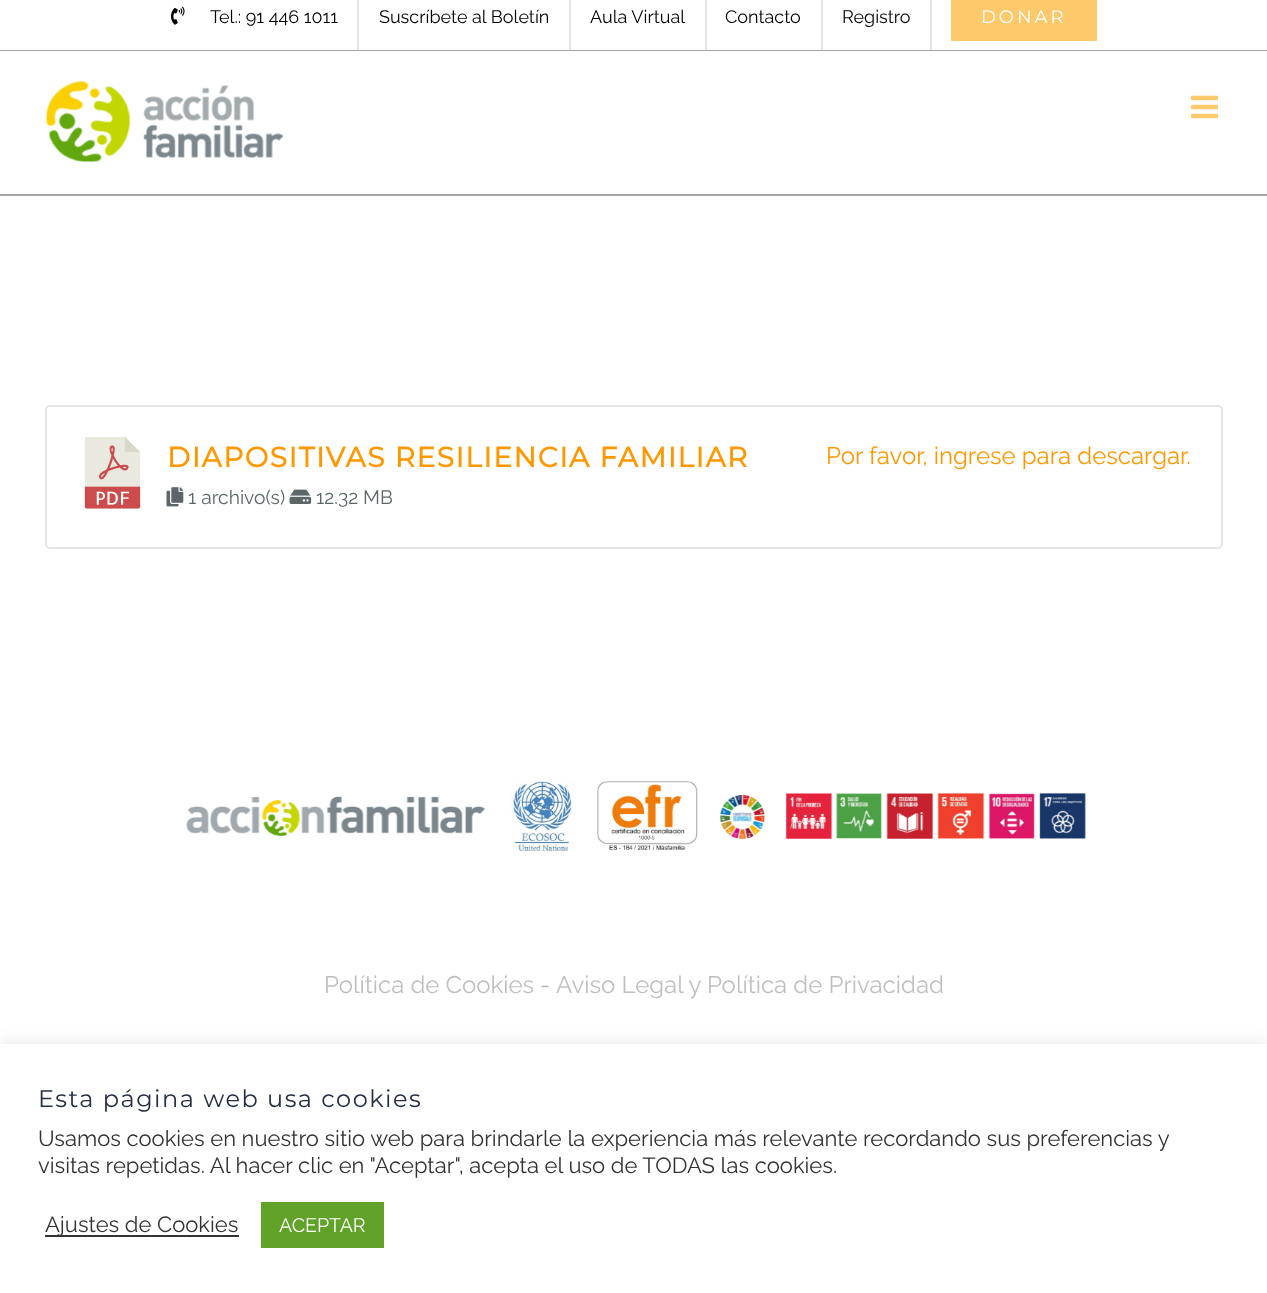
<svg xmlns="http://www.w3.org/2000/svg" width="1267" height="1293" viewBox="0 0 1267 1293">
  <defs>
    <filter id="blur1" x="-50%" y="-200%" width="200%" height="500%"><feGaussianBlur stdDeviation="7.5"/></filter>
  </defs>
  <rect width="100%" height="100%" fill="#ffffff"/>
  <rect x="0" y="50" width="1267" height="1" fill="#a5a5a5"/>
  <image x="171" y="6" width="14" height="19" href="img1.png"/>
  <text x="210" y="23" font-family="Raleway" font-size="18" font-weight="100" fill="#000000">Tel.: 91 446 1011</text>
  <rect x="357" y="0" width="2" height="50" fill="#e5e5e5"/>
  <text x="379" y="23" font-family="Raleway" font-size="18" font-weight="100" fill="#000000">Suscríbete al Boletín</text>
  <rect x="569" y="0" width="2" height="50" fill="#e5e5e5"/>
  <text x="590" y="23" font-family="Raleway" font-size="18" font-weight="100" fill="#000000">Aula Virtual</text>
  <rect x="705" y="0" width="2" height="50" fill="#e5e5e5"/>
  <text x="725" y="23" font-family="Raleway" font-size="18" font-weight="100" fill="#000000">Contacto</text>
  <rect x="821" y="0" width="2" height="50" fill="#e5e5e5"/>
  <text x="842" y="23" font-family="Raleway" font-size="18" font-weight="100" fill="#000000">Registro</text>
  <rect x="930" y="0" width="2" height="50" fill="#e5e5e5"/>
  <rect x="951" y="0" width="146" height="41" fill="#fec96b"/>
  <text x="981" y="23" font-family="Montserrat" font-size="18" font-weight="100" letter-spacing="3" fill="#ffffff">DONAR</text>
  <rect x="0" y="194" width="1267" height="2" fill="#a5a5a5"/>
  <image x="46" y="81" width="237" height="81" href="img2.png"/>
  <image x="1191" y="95" width="27" height="24" href="img3.png"/>
  <rect x="46" y="406" width="1176" height="142" rx="4" fill="none" stroke="#e5e5e5" stroke-width="2"/>
  <image x="84" y="437" width="57" height="72" href="img4.png"/>
  <text x="167" y="467" font-family="Montserrat" font-size="28" font-weight="bold" letter-spacing="1.5" fill="#ff9800">DIAPOSITIVAS RESILIENCIA FAMILIAR</text>
  <image x="166" y="487" width="18" height="20" href="img5.png"/>
  <text x="188" y="504" font-family="Raleway" font-size="19.25" font-weight="100" fill="#5c6668">1 archivo(s)</text>
  <image x="289" y="489" width="23" height="15" href="img6.png"/>
  <text x="316" y="504" font-family="Raleway" font-size="19.25" font-weight="100" fill="#5c6668">12.32 MB</text>
  <text x="826" y="464" font-family="Raleway" font-size="24" font-weight="100" fill="#ff9800">Por favor, ingrese para descargar.</text>
  <image x="186" y="781" width="900" height="70" href="img7.png"/>
  <text x="324" y="993" font-family="Raleway" font-size="24" font-weight="100" fill="#bfbfbf">Política de Cookies</text>
  <text x="540" y="993" font-family="Raleway" font-size="24" font-weight="100" fill="#b2b7b8">-</text>
  <text x="556" y="993" font-family="Raleway" font-size="24" font-weight="100" fill="#bfbfbf">Aviso Legal y Política de Privacidad</text>
  <rect x="0" y="1043" width="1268" height="249" fill="#acabab" fill-opacity="0.3" filter="url(#blur1)"/>
  <rect x="0" y="1044" width="1267" height="249" fill="#ffffff"/>
  <text x="38" y="1107" font-family="Montserrat" font-size="24" font-weight="100" letter-spacing="1.5" fill="#262e44">Esta página web usa cookies</text>
  <text x="38" y="1146" font-family="Raleway" font-size="22" font-weight="100" fill="#333333">Usamos cookies en nuestro sitio web para brindarle la experiencia más relevante recordando sus preferencias y</text>
  <text x="38" y="1173" font-family="Raleway" font-size="22" font-weight="100" fill="#333333">visitas repetidas. Al hacer clic en "Aceptar", acepta el uso de TODAS las cookies.</text>
  <rect x="45" y="1235" width="194" height="2" fill="#333333"/>
  <text x="45" y="1232" font-family="Raleway" font-size="22" font-weight="100" fill="#333333">Ajustes de Cookies</text>
  <rect x="261" y="1202" width="123" height="46" fill="#61a229"/>
  <text x="279" y="1232" font-family="Raleway" font-size="19.5" font-weight="100" fill="#ffffff">ACEPTAR</text>
</svg>
